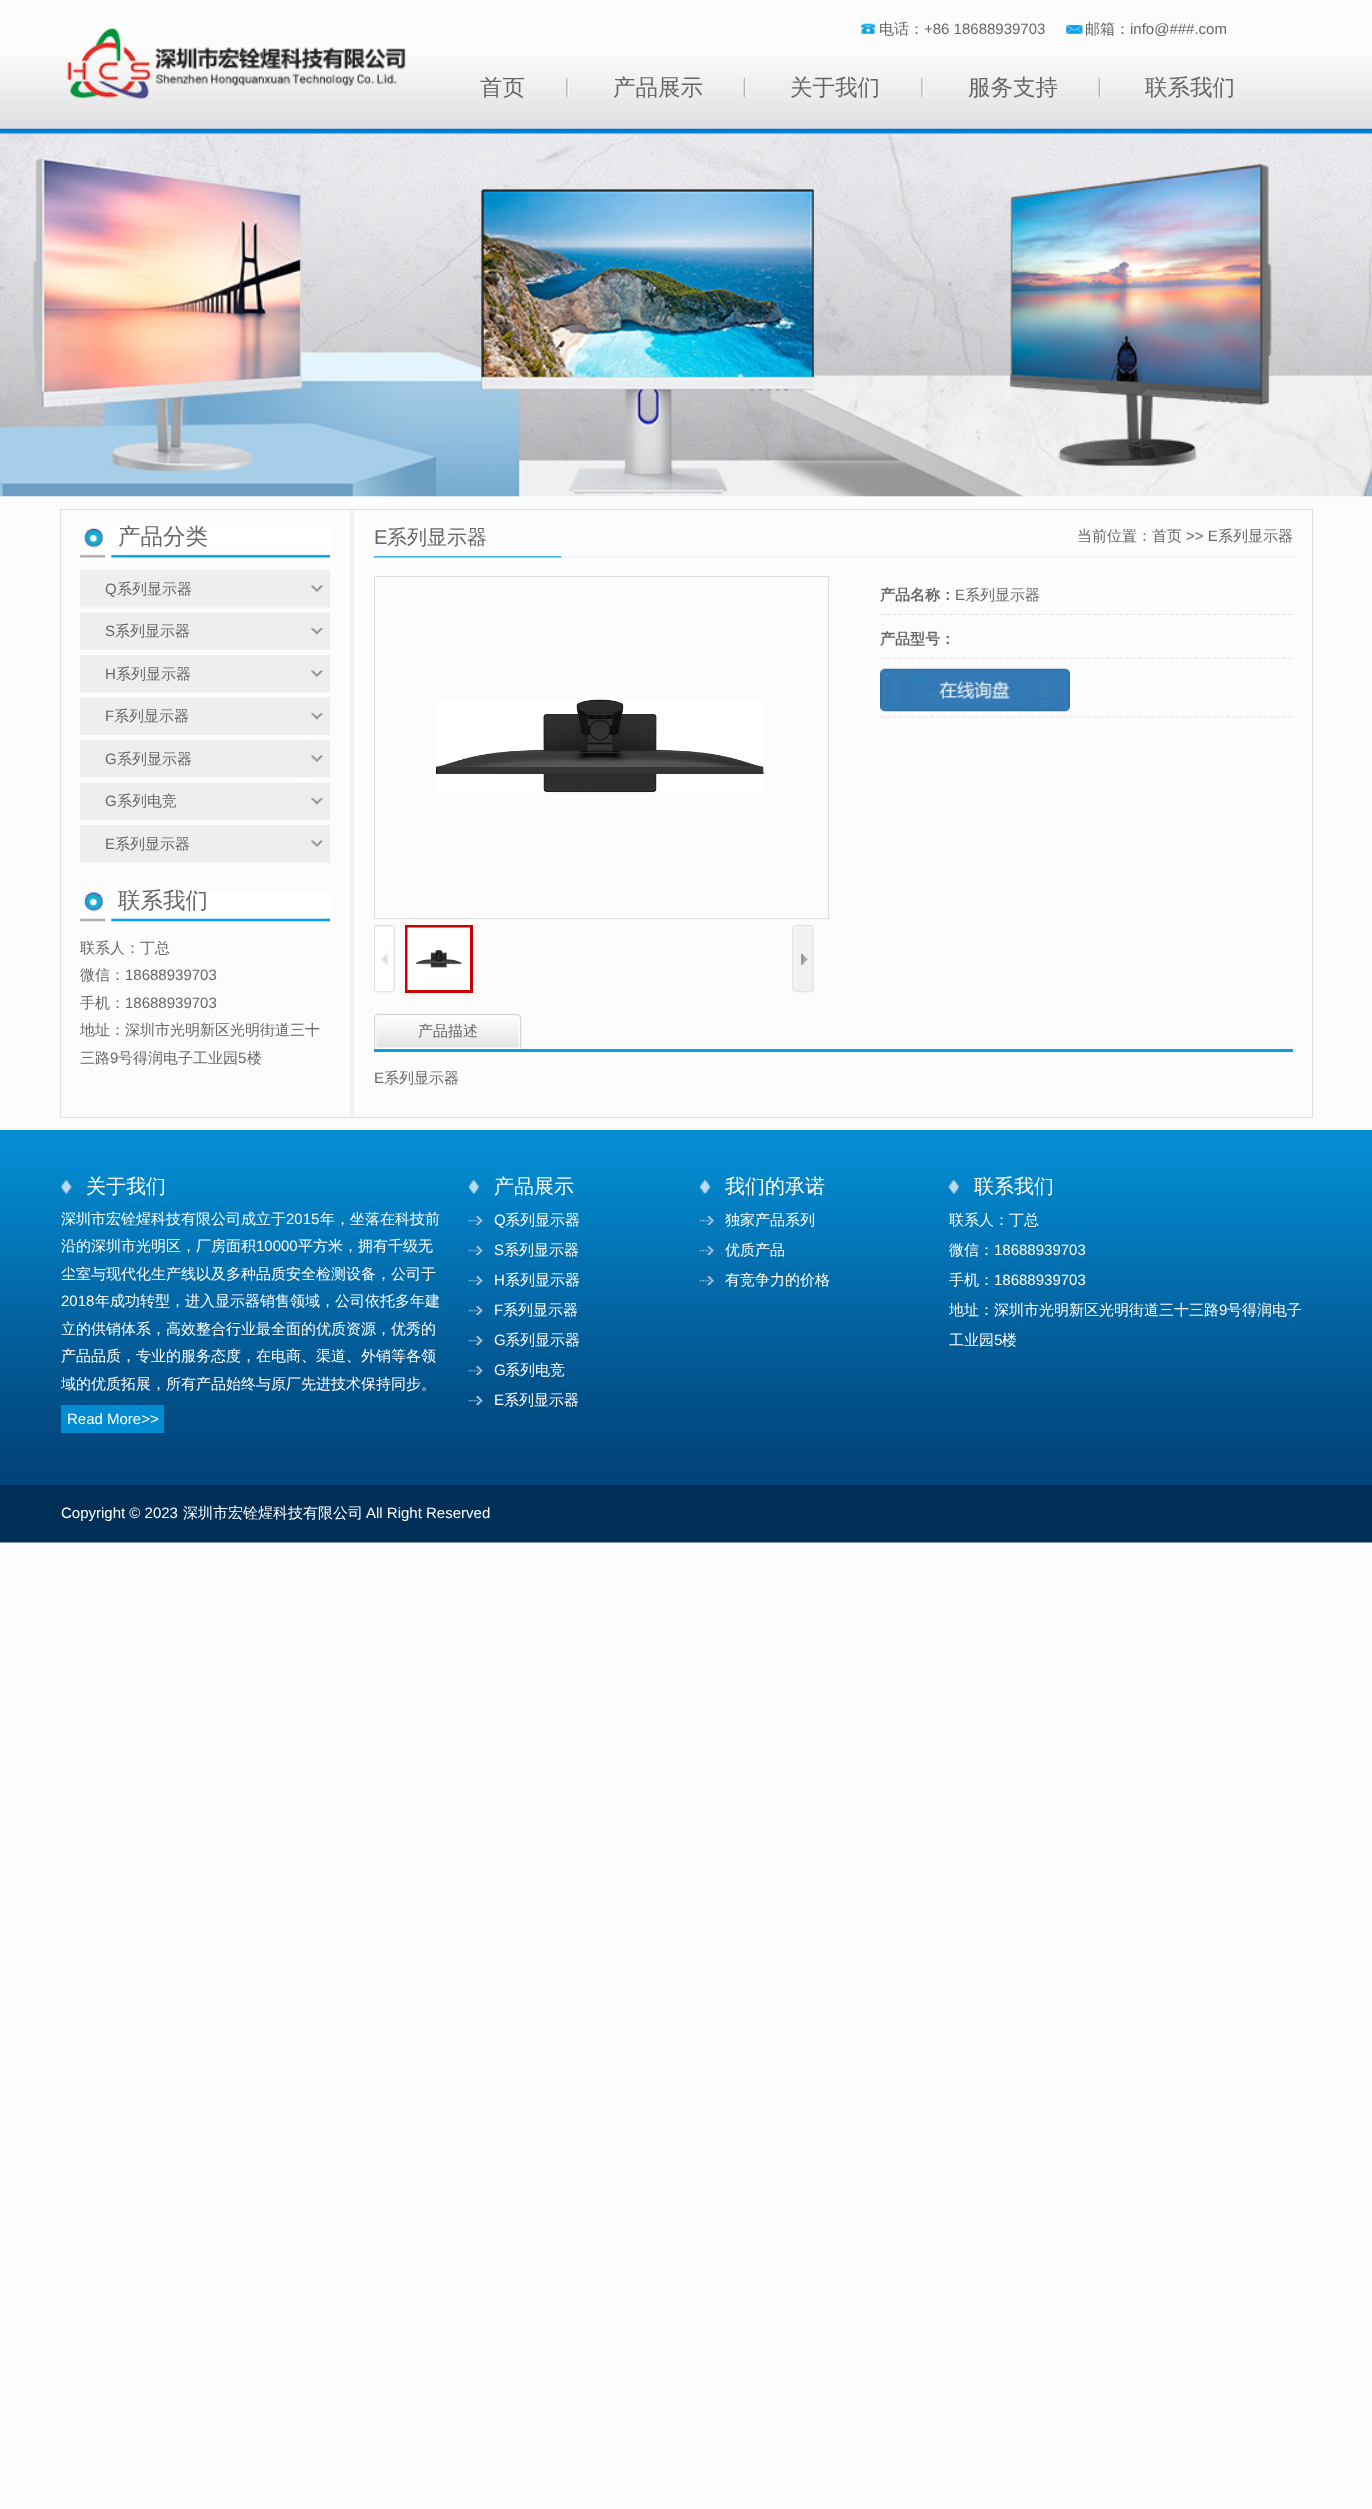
<svg xmlns="http://www.w3.org/2000/svg" width="1372" height="2509" viewBox="0 0 1372 2509">
  <rect width="100%" height="100%" fill="#fcfcfc"/>
  <image x="0" y="56" width="1372" height="78" href="img1.png"/>
  <image x="67" y="28" width="339" height="71" href="img2.png"/>
  <image x="861" y="23" width="14" height="11" href="img3.png"/>
  <text x="879" y="34" font-family="WenQuanYi Zen Hei" font-size="15" font-weight="500" fill="#666666">电话：</text>
  <text x="924" y="34" font-family="Liberation Sans" font-size="15" fill="#666666">+86 18688939703</text>
  <image x="1066" y="24" width="17" height="10" href="img4.png"/>
  <text x="1085" y="34" font-family="WenQuanYi Zen Hei" font-size="15" font-weight="500" fill="#666666">邮箱：</text>
  <text x="1130" y="34" font-family="Liberation Sans" font-size="15" fill="#666666">info@###.com</text>
  <image x="566" y="77" width="3" height="21" href="img5.png"/>
  <text x="480" y="95" font-family="WenQuanYi Zen Hei" font-size="22.5" font-weight="500" fill="#666666">首页</text>
  <image x="743" y="77" width="4" height="21" href="img6.png"/>
  <text x="613" y="95" font-family="WenQuanYi Zen Hei" font-size="22.5" font-weight="500" fill="#666666">产品展示</text>
  <image x="921" y="77" width="3" height="21" href="img5.png"/>
  <text x="790" y="95" font-family="WenQuanYi Zen Hei" font-size="22.5" font-weight="500" fill="#666666">关于我们</text>
  <image x="1098" y="77" width="4" height="21" href="img6.png"/>
  <text x="968" y="95" font-family="WenQuanYi Zen Hei" font-size="22.5" font-weight="500" fill="#666666">服务支持</text>
  <text x="1145" y="95" font-family="WenQuanYi Zen Hei" font-size="22.5" font-weight="500" fill="#666666">联系我们</text>
  <image x="0" y="133" width="1372" height="364" href="img7.png"/>
  <rect x="350" y="509" width="4" height="609" fill="#f1f1f3"/>
  <rect x="60.5" y="509.5" width="1252" height="608" fill="none" stroke="#dedede"/>
  <image x="80" y="528" width="250" height="30" href="img8.png"/>
  <text x="118" y="544" font-family="WenQuanYi Zen Hei" font-size="22.5" font-weight="500" fill="#666666">产品分类</text>
  <image x="80" y="570" width="250" height="38" href="img9.png"/>
  <text x="105" y="594" font-family="Liberation Sans" font-size="15" fill="#666666">Q</text>
  <text x="117" y="594" font-family="WenQuanYi Zen Hei" font-size="15" font-weight="500" fill="#666666">系列显示器</text>
  <image x="80" y="612" width="250" height="38" href="img10.png"/>
  <text x="105" y="636" font-family="Liberation Sans" font-size="15" fill="#666666">S</text>
  <text x="115" y="636" font-family="WenQuanYi Zen Hei" font-size="15" font-weight="500" fill="#666666">系列显示器</text>
  <image x="80" y="655" width="250" height="38" href="img11.png"/>
  <text x="105" y="679" font-family="Liberation Sans" font-size="15" fill="#666666">H</text>
  <text x="116" y="679" font-family="WenQuanYi Zen Hei" font-size="15" font-weight="500" fill="#666666">系列显示器</text>
  <image x="80" y="697" width="250" height="38" href="img10.png"/>
  <text x="105" y="721" font-family="Liberation Sans" font-size="15" fill="#666666">F</text>
  <text x="114" y="721" font-family="WenQuanYi Zen Hei" font-size="15" font-weight="500" fill="#666666">系列显示器</text>
  <image x="80" y="740" width="250" height="38" href="img11.png"/>
  <text x="105" y="764" font-family="Liberation Sans" font-size="15" fill="#666666">G</text>
  <text x="117" y="764" font-family="WenQuanYi Zen Hei" font-size="15" font-weight="500" fill="#666666">系列显示器</text>
  <image x="80" y="782" width="250" height="38" href="img12.png"/>
  <text x="105" y="806" font-family="Liberation Sans" font-size="15" fill="#666666">G</text>
  <text x="117" y="806" font-family="WenQuanYi Zen Hei" font-size="15" font-weight="500" fill="#666666">系列电竞</text>
  <image x="80" y="825" width="250" height="38" href="img11.png"/>
  <text x="105" y="849" font-family="Liberation Sans" font-size="15" fill="#666666">E</text>
  <text x="115" y="849" font-family="WenQuanYi Zen Hei" font-size="15" font-weight="500" fill="#666666">系列显示器</text>
  <image x="80" y="892" width="250" height="30" href="img13.png"/>
  <text x="118" y="908" font-family="WenQuanYi Zen Hei" font-size="22.5" font-weight="500" fill="#666666">联系我们</text>
  <text x="80" y="953" font-family="WenQuanYi Zen Hei" font-size="15" font-weight="500" fill="#666666">联系人：丁总</text>
  <text x="80" y="980" font-family="WenQuanYi Zen Hei" font-size="15" font-weight="500" fill="#666666">微信：</text>
  <text x="125" y="980" font-family="Liberation Sans" font-size="15" fill="#666666">18688939703</text>
  <text x="80" y="1008" font-family="WenQuanYi Zen Hei" font-size="15" font-weight="500" fill="#666666">手机：</text>
  <text x="125" y="1008" font-family="Liberation Sans" font-size="15" fill="#666666">18688939703</text>
  <text x="80" y="1035" font-family="WenQuanYi Zen Hei" font-size="15" font-weight="500" fill="#666666">地址：深圳市光明新区光明街道三十</text>
  <text x="80" y="1063" font-family="WenQuanYi Zen Hei" font-size="15" font-weight="500" fill="#666666">三路</text>
  <text x="110" y="1063" font-family="Liberation Sans" font-size="15" fill="#666666">9</text>
  <text x="118" y="1063" font-family="WenQuanYi Zen Hei" font-size="15" font-weight="500" fill="#666666">号得润电子工业园</text>
  <text x="238" y="1063" font-family="Liberation Sans" font-size="15" fill="#666666">5</text>
  <text x="247" y="1063" font-family="WenQuanYi Zen Hei" font-size="15" font-weight="500" fill="#666666">楼</text>
  <image x="373" y="556" width="920" height="2" href="img14.png"/>
  <text x="374" y="544" font-family="Liberation Sans" font-size="20" fill="#666666">E</text>
  <text x="387" y="544" font-family="WenQuanYi Zen Hei" font-size="20" font-weight="500" fill="#666666">系列显示器</text>
  <text x="1077" y="541" font-family="WenQuanYi Zen Hei" font-size="15" font-weight="500" fill="#666666">当前位置：首页</text>
  <text x="1186" y="541" font-family="Liberation Sans" font-size="15" fill="#666666">&gt;&gt; E</text>
  <text x="1218" y="541" font-family="WenQuanYi Zen Hei" font-size="15" font-weight="500" fill="#666666">系列显示器</text>
  <rect x="374.5" y="576.5" width="454" height="342" fill="none" stroke="#dddddd"/>
  <image x="436" y="699" width="328" height="94" href="img15.png"/>
  <image x="374" y="925" width="21" height="68" href="img16.png"/>
  <rect x="406.5" y="926.5" width="65" height="65" fill="none" stroke="#cc0000" stroke-width="3"/>
  <image x="407" y="927" width="63" height="63" href="img17.png"/>
  <image x="792" y="925" width="22" height="68" href="img18.png"/>
  <path d="M880 614.5H1292.5" fill="none" stroke="#e1e1e1" stroke-width="1.2" stroke-dasharray="3.75 2.54"/>
  <text x="880" y="600" font-family="WenQuanYi Zen Hei" font-size="15" font-weight="bold" fill="#666666">产品名称：</text>
  <text x="955" y="600" font-family="Liberation Sans" font-size="15" fill="#666666">E</text>
  <text x="965" y="600" font-family="WenQuanYi Zen Hei" font-size="15" font-weight="500" fill="#666666">系列显示器</text>
  <path d="M880 658H1292.5" fill="none" stroke="#e1e1e1" stroke-width="1.2" stroke-dasharray="3.75 2.54"/>
  <text x="880" y="644" font-family="WenQuanYi Zen Hei" font-size="15" font-weight="bold" fill="#666666">产品型号：</text>
  <path d="M880 717H1292.5" fill="none" stroke="#e1e1e1" stroke-width="1.2" stroke-dasharray="3.75 2.54"/>
  <image x="880" y="668" width="190" height="44" href="img19.png"/>
  <rect x="374" y="1049" width="919" height="3" fill="#049fe9"/>
  <image x="374" y="1013" width="148" height="36" href="img20.png"/>
  <text x="418" y="1036" font-family="WenQuanYi Zen Hei" font-size="15" font-weight="500" fill="#666666">产品描述</text>
  <text x="374" y="1083" font-family="Liberation Sans" font-size="15" fill="#666666">E</text>
  <text x="384" y="1083" font-family="WenQuanYi Zen Hei" font-size="15" font-weight="500" fill="#666666">系列显示器</text>
  <image x="0" y="1130" width="1372" height="413" href="img21.png"/>
  <image x="61" y="1180" width="11" height="14" href="img22.png"/>
  <text x="86" y="1193" font-family="WenQuanYi Zen Hei" font-size="20" font-weight="500" fill="#ffffff">关于我们</text>
  <text x="61" y="1224" font-family="WenQuanYi Zen Hei" font-size="15" font-weight="500" fill="#ffffff">深圳市宏铨煋科技有限公司成立于</text>
  <text x="286" y="1224" font-family="Liberation Sans" font-size="15" fill="#ffffff">2015</text>
  <text x="320" y="1224" font-family="WenQuanYi Zen Hei" font-size="15" font-weight="500" fill="#ffffff">年，坐落在科技前</text>
  <text x="61" y="1251" font-family="WenQuanYi Zen Hei" font-size="15" font-weight="500" fill="#ffffff">沿的深圳市光明区，厂房面积</text>
  <text x="256" y="1251" font-family="Liberation Sans" font-size="15" fill="#ffffff">10000</text>
  <text x="298" y="1251" font-family="WenQuanYi Zen Hei" font-size="15" font-weight="500" fill="#ffffff">平方米，拥有千级无</text>
  <text x="61" y="1279" font-family="WenQuanYi Zen Hei" font-size="15" font-weight="500" fill="#ffffff">尘室与现代化生产线以及多种品质安全检测设备，公司于</text>
  <text x="61" y="1306" font-family="Liberation Sans" font-size="15" fill="#ffffff">2018</text>
  <text x="95" y="1306" font-family="WenQuanYi Zen Hei" font-size="15" font-weight="500" fill="#ffffff">年成功转型，进入显示器销售领域，公司依托多年建</text>
  <text x="61" y="1334" font-family="WenQuanYi Zen Hei" font-size="15" font-weight="500" fill="#ffffff">立的供销体系，高效整合行业最全面的优质资源，优秀的</text>
  <text x="61" y="1361" font-family="WenQuanYi Zen Hei" font-size="15" font-weight="500" fill="#ffffff">产品品质，专业的服务态度，在电商、渠道、外销等各领</text>
  <text x="61" y="1389" font-family="WenQuanYi Zen Hei" font-size="15" font-weight="500" fill="#ffffff">域的优质拓展，所有产品始终与原厂先进技术保持同步。</text>
  <rect x="61" y="1405" width="103" height="28" fill="#038bd1"/>
  <text x="67" y="1424" font-family="Liberation Sans" font-size="15" fill="#ffffff">Read More&gt;&gt;</text>
  <image x="468" y="1180" width="11" height="14" href="img23.png"/>
  <text x="494" y="1193" font-family="WenQuanYi Zen Hei" font-size="20" font-weight="500" fill="#ffffff">产品展示</text>
  <image x="468" y="1216" width="15" height="9" href="img24.png"/>
  <text x="494" y="1225" font-family="Liberation Sans" font-size="15" fill="#ffffff">Q</text>
  <text x="505" y="1225" font-family="WenQuanYi Zen Hei" font-size="15" font-weight="500" fill="#ffffff">系列显示器</text>
  <image x="468" y="1246" width="15" height="9" href="img25.png"/>
  <text x="494" y="1255" font-family="Liberation Sans" font-size="15" fill="#ffffff">S</text>
  <text x="504" y="1255" font-family="WenQuanYi Zen Hei" font-size="15" font-weight="500" fill="#ffffff">系列显示器</text>
  <image x="468" y="1276" width="15" height="9" href="img26.png"/>
  <text x="494" y="1285" font-family="Liberation Sans" font-size="15" fill="#ffffff">H</text>
  <text x="505" y="1285" font-family="WenQuanYi Zen Hei" font-size="15" font-weight="500" fill="#ffffff">系列显示器</text>
  <image x="468" y="1306" width="15" height="9" href="img27.png"/>
  <text x="494" y="1315" font-family="Liberation Sans" font-size="15" fill="#ffffff">F</text>
  <text x="503" y="1315" font-family="WenQuanYi Zen Hei" font-size="15" font-weight="500" fill="#ffffff">系列显示器</text>
  <image x="468" y="1336" width="15" height="9" href="img28.png"/>
  <text x="494" y="1345" font-family="Liberation Sans" font-size="15" fill="#ffffff">G</text>
  <text x="505" y="1345" font-family="WenQuanYi Zen Hei" font-size="15" font-weight="500" fill="#ffffff">系列显示器</text>
  <image x="468" y="1366" width="15" height="9" href="img29.png"/>
  <text x="494" y="1375" font-family="Liberation Sans" font-size="15" fill="#ffffff">G</text>
  <text x="505" y="1375" font-family="WenQuanYi Zen Hei" font-size="15" font-weight="500" fill="#ffffff">系列电竞</text>
  <image x="468" y="1396" width="15" height="9" href="img30.png"/>
  <text x="494" y="1405" font-family="Liberation Sans" font-size="15" fill="#ffffff">E</text>
  <text x="504" y="1405" font-family="WenQuanYi Zen Hei" font-size="15" font-weight="500" fill="#ffffff">系列显示器</text>
  <image x="700" y="1180" width="11" height="14" href="img31.png"/>
  <text x="725" y="1193" font-family="WenQuanYi Zen Hei" font-size="20" font-weight="500" fill="#ffffff">我们的承诺</text>
  <image x="700" y="1216" width="14" height="9" href="img32.png"/>
  <text x="725" y="1225" font-family="WenQuanYi Zen Hei" font-size="15" font-weight="500" fill="#ffffff">独家产品系列</text>
  <image x="700" y="1246" width="14" height="9" href="img33.png"/>
  <text x="725" y="1255" font-family="WenQuanYi Zen Hei" font-size="15" font-weight="500" fill="#ffffff">优质产品</text>
  <image x="700" y="1276" width="14" height="9" href="img34.png"/>
  <text x="725" y="1285" font-family="WenQuanYi Zen Hei" font-size="15" font-weight="500" fill="#ffffff">有竞争力的价格</text>
  <image x="948" y="1180" width="11" height="14" href="img35.png"/>
  <text x="974" y="1193" font-family="WenQuanYi Zen Hei" font-size="20" font-weight="500" fill="#ffffff">联系我们</text>
  <text x="949" y="1225" font-family="WenQuanYi Zen Hei" font-size="15" font-weight="500" fill="#ffffff">联系人：丁总</text>
  <text x="949" y="1255" font-family="WenQuanYi Zen Hei" font-size="15" font-weight="500" fill="#ffffff">微信：</text>
  <text x="994" y="1255" font-family="Liberation Sans" font-size="15" fill="#ffffff">18688939703</text>
  <text x="949" y="1285" font-family="WenQuanYi Zen Hei" font-size="15" font-weight="500" fill="#ffffff">手机：</text>
  <text x="994" y="1285" font-family="Liberation Sans" font-size="15" fill="#ffffff">18688939703</text>
  <text x="949" y="1315" font-family="WenQuanYi Zen Hei" font-size="15" font-weight="500" fill="#ffffff">地址：深圳市光明新区光明街道三十三路</text>
  <text x="1219" y="1315" font-family="Liberation Sans" font-size="15" fill="#ffffff">9</text>
  <text x="1227" y="1315" font-family="WenQuanYi Zen Hei" font-size="15" font-weight="500" fill="#ffffff">号得润电子</text>
  <text x="949" y="1345" font-family="WenQuanYi Zen Hei" font-size="15" font-weight="500" fill="#ffffff">工业园</text>
  <text x="994" y="1345" font-family="Liberation Sans" font-size="15" fill="#ffffff">5</text>
  <text x="1002" y="1345" font-family="WenQuanYi Zen Hei" font-size="15" font-weight="500" fill="#ffffff">楼</text>
  <text x="61" y="1518" font-family="Liberation Sans" font-size="15" fill="#ffffff">Copyright © 2023</text>
  <text x="183" y="1518" font-family="WenQuanYi Zen Hei" font-size="15" font-weight="500" fill="#ffffff">深圳市宏铨煋科技有限公司</text>
  <text x="366" y="1518" font-family="Liberation Sans" font-size="15" fill="#ffffff">All Right Reserved</text>
</svg>
